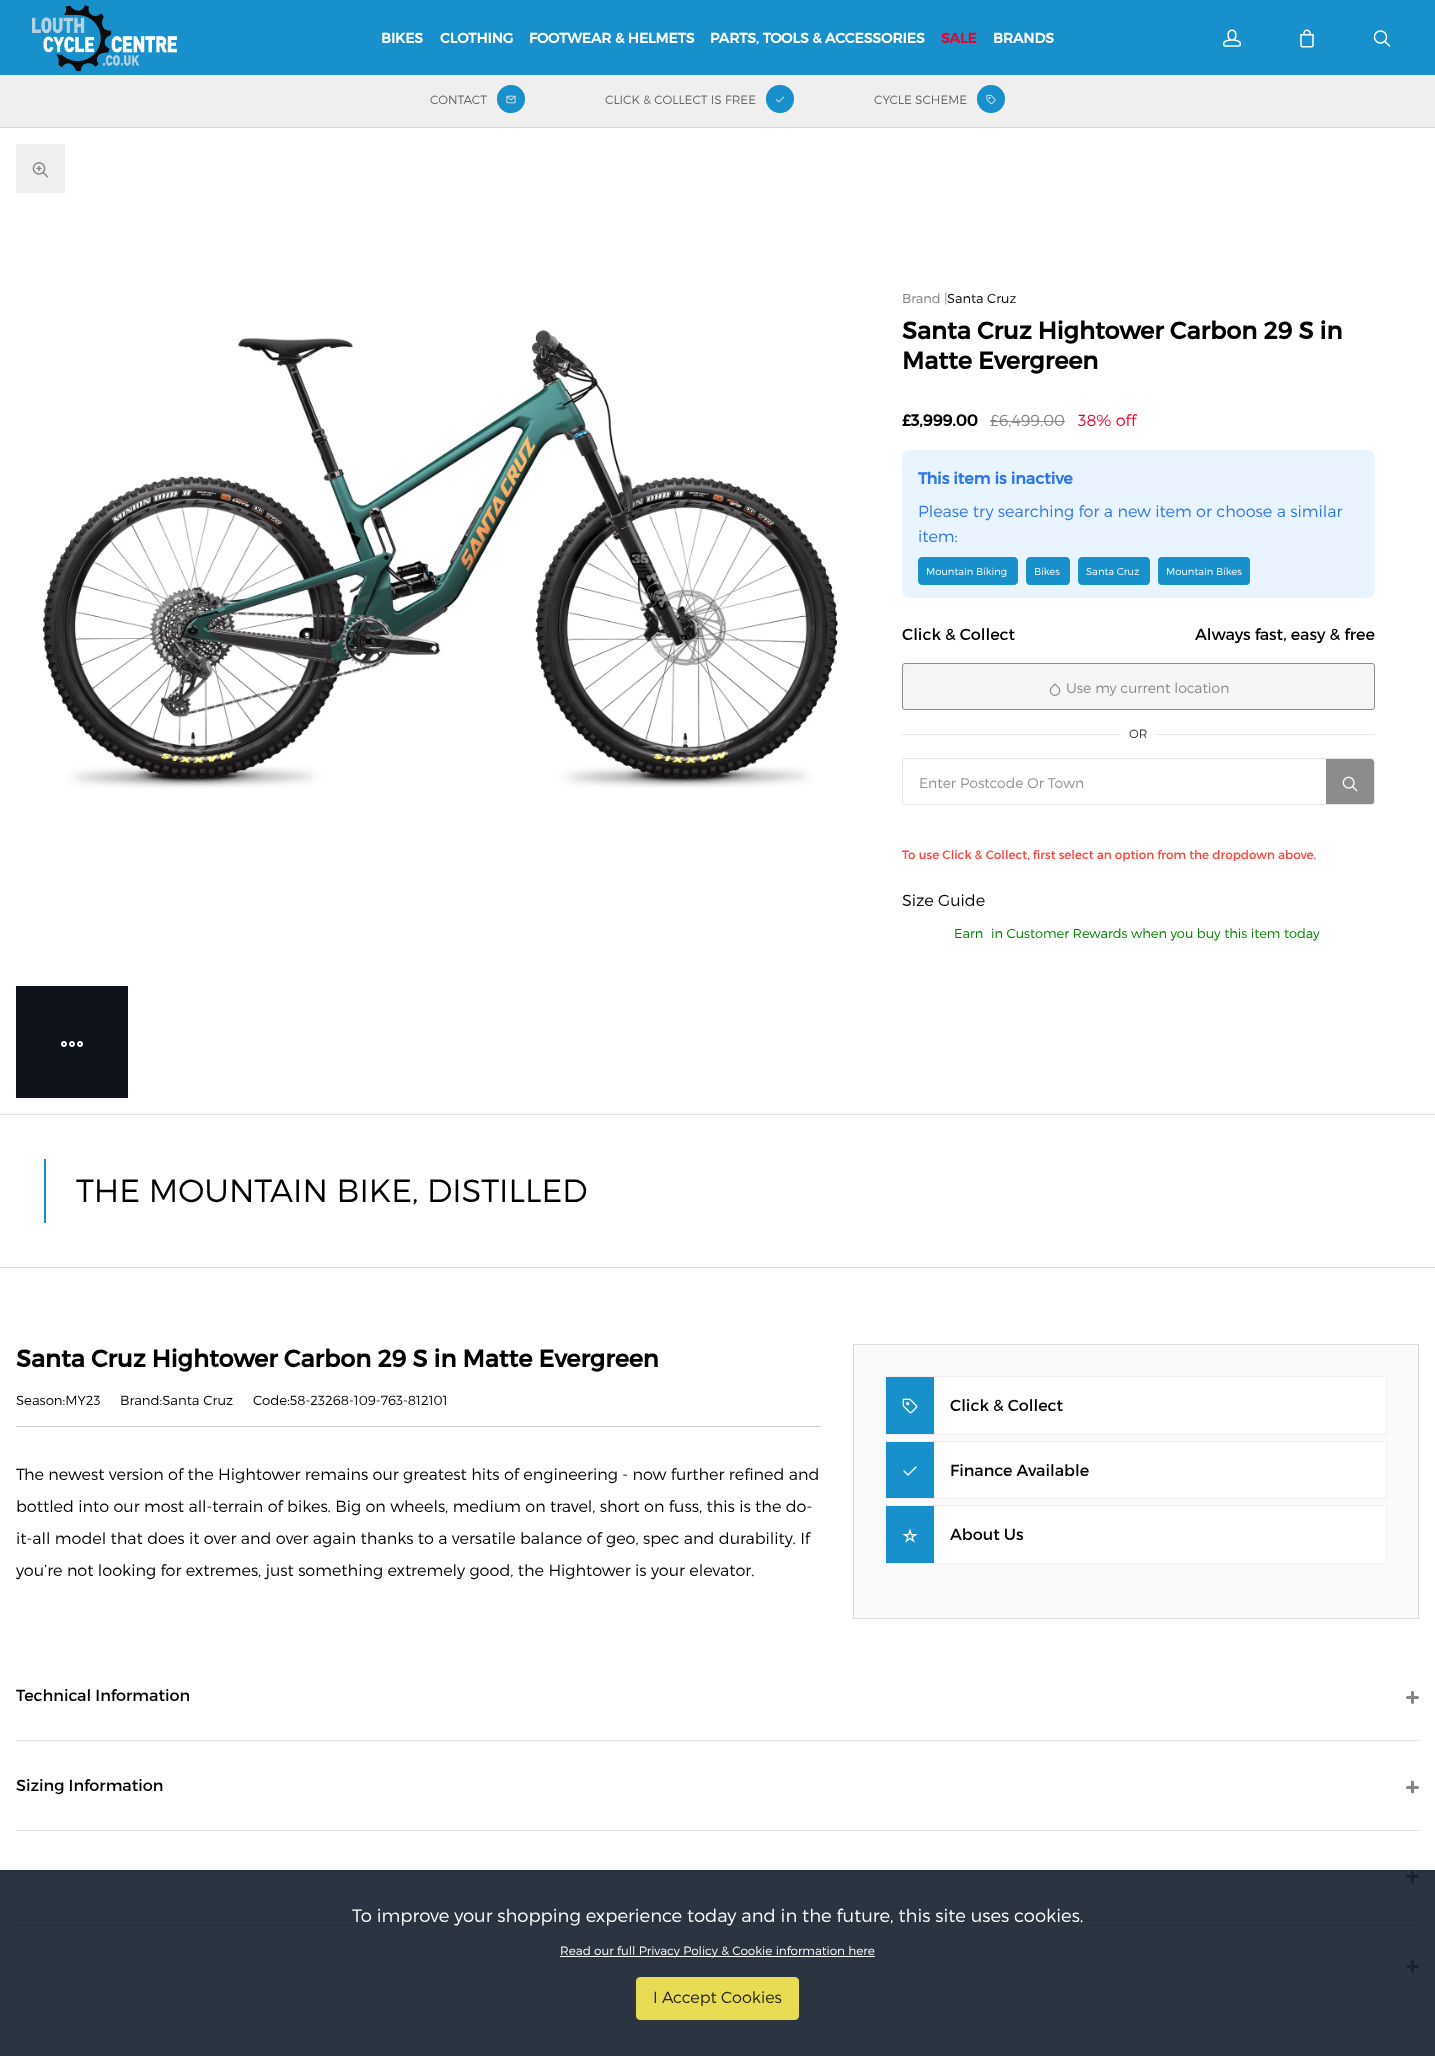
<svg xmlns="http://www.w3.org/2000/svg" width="1435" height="2056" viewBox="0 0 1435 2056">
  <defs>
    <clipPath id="clip1"><rect x="903" y="759" width="471" height="45" rx="2"/></clipPath>
  </defs>
  <rect width="100%" height="100%" fill="#ffffff"/>
  <rect x="0" y="0" width="1435" height="75" fill="#1790cc"/>
  <image x="32" y="4" width="145" height="68" href="img1.png"/>
  <text x="381" y="43" font-family="Montserrat" font-size="14" font-weight="bold" fill="#ffffff">BIKES</text>
  <text x="440" y="43" font-family="Montserrat" font-size="14" font-weight="bold" fill="#ffffff">CLOTHING</text>
  <text x="529" y="43" font-family="Montserrat" font-size="14" font-weight="bold" fill="#ffffff">FOOTWEAR &amp; HELMETS</text>
  <text x="710" y="43" font-family="Montserrat" font-size="14" font-weight="bold" fill="#ffffff">PARTS, TOOLS &amp; ACCESSORIES</text>
  <text x="941" y="43" font-family="Montserrat" font-size="14" font-weight="bold" fill="#ec0028">SALE</text>
  <text x="993" y="43" font-family="Montserrat" font-size="14" font-weight="bold" fill="#ffffff">BRANDS</text>
  <image x="1223" y="29" width="18" height="18" href="img2.png"/>
  <image x="1300" y="29" width="14" height="19" href="img3.png"/>
  <image x="1373" y="30" width="18" height="17" href="img4.png"/>
  <rect x="0" y="75" width="1435" height="52" fill="#efefef"/>
  <rect x="0" y="127" width="1435" height="1" fill="#dbdbdb"/>
  <text x="430" y="104" font-family="Montserrat" font-size="12" font-weight="300" fill="#666666">CONTACT</text>
  <circle cx="511" cy="99" r="14" fill="#1790cc"/>
  <circle cx="511" cy="99" r="13.5" fill="none" stroke="#1488c7" stroke-opacity="0.34"/>
  <image x="506" y="95" width="10" height="9" href="img5.png"/>
  <text x="605" y="104" font-family="Montserrat" font-size="12" font-weight="300" fill="#666666">CLICK &amp; COLLECT IS FREE</text>
  <circle cx="780" cy="99" r="14" fill="#1790cc"/>
  <circle cx="780" cy="99" r="13.5" fill="none" stroke="#1488c7" stroke-opacity="0.34"/>
  <image x="775" y="96" width="10" height="7" href="img6.png"/>
  <text x="874" y="104" font-family="Montserrat" font-size="12" font-weight="300" fill="#666666">CYCLE SCHEME</text>
  <circle cx="991" cy="99" r="14" fill="#1790cc"/>
  <circle cx="991" cy="99" r="13.5" fill="none" stroke="#1488c7" stroke-opacity="0.34"/>
  <image x="986" y="94" width="10" height="11" href="img7.png"/>
  <rect x="16" y="144" width="49" height="49" fill="#efefef"/>
  <image x="32" y="162" width="16" height="16" href="img8.png"/>
  <image x="42" y="329" width="796" height="460" href="img9.png"/>
  <rect x="16" y="986" width="112" height="112" fill="#0e131b"/>
  <image x="61" y="1041" width="22" height="6" href="img10.png"/>
  <text x="902" y="303" font-family="Montserrat" font-size="13" font-weight="300" fill="#808080">Brand |</text>
  <text x="947" y="303" font-family="Montserrat" font-size="13" font-weight="300" fill="#000000">Santa Cruz</text>
  <text x="902" y="339" font-family="Montserrat" font-size="24" font-weight="bold" fill="#000000">Santa Cruz Hightower Carbon 29 S in</text>
  <text x="902" y="369" font-family="Montserrat" font-size="24" font-weight="bold" fill="#000000">Matte Evergreen</text>
  <text x="902" y="426" font-family="Montserrat" font-size="16" font-weight="bold" fill="#000000">£3,999.00</text>
  <text x="990" y="426" font-family="Montserrat" font-size="16" font-weight="300" fill="#888888">£6,499.00</text>
  <rect x="990" y="421" width="75" height="1" fill="#888888"/>
  <text x="1078" y="426" font-family="Montserrat" font-size="16" font-weight="300" fill="#ec0028">38% off</text>
  <rect x="902" y="450" width="473" height="148" rx="8" fill="#e8f4ff"/>
  <text x="918" y="484" font-family="Montserrat" font-size="16" font-weight="bold" fill="#2f76ec">This item is inactive</text>
  <text x="918" y="517" font-family="Montserrat" font-size="16" font-weight="300" fill="#2f76ec">Please try searching for a new item or choose a similar</text>
  <text x="918" y="542" font-family="Montserrat" font-size="16" font-weight="300" fill="#2f76ec">item:</text>
  <path d="M922 557H1007V585H922C920 585 918 583 918 581V561C918 559 920 557 922 557Z" fill="#1790cc"/>
  <text x="926" y="575" font-family="Montserrat" font-size="10" font-weight="300" fill="#ffffff">Mountain Biking</text>
  <path d="M1007 557H1014C1016 557 1018 559 1018 561V581C1018 583 1016 585 1014 585H1007Z" fill="#1790cc"/>
  <path d="M1030 557H1059V585H1030C1028 585 1026 583 1026 581V561C1026 559 1028 557 1030 557Z" fill="#1790cc"/>
  <path d="M1059 557H1066C1068 557 1070 559 1070 561V581C1070 583 1068 585 1066 585H1059Z" fill="#1790cc"/>
  <text x="1034" y="575" font-family="Montserrat" font-size="10" font-weight="300" fill="#ffffff">Bikes</text>
  <path d="M1082 557H1139V585H1082C1080 585 1078 583 1078 581V561C1078 559 1080 557 1082 557Z" fill="#1790cc"/>
  <path d="M1139 557H1146C1148 557 1150 559 1150 561V581C1150 583 1148 585 1146 585H1139Z" fill="#1790cc"/>
  <text x="1086" y="575" font-family="Montserrat" font-size="10" font-weight="300" fill="#ffffff">Santa Cruz</text>
  <rect x="1158" y="557" width="92" height="28" rx="4" fill="#1790cc"/>
  <text x="1166" y="575" font-family="Montserrat" font-size="10" font-weight="300" fill="#ffffff">Mountain Bikes</text>
  <text x="902" y="640" font-family="Montserrat" font-size="16" fill="#000000">Click &amp; Collect</text>
  <text x="1195" y="640" font-family="Montserrat" font-size="16" fill="#000000">Always fast, easy &amp; free</text>
  <rect x="902.5" y="663.5" width="472" height="46" rx="2.5" fill="#f5f5f5" stroke="#8c8c8c"/>
  <image x="1049" y="683" width="12" height="13" href="img11.png"/>
  <text x="1066" y="693" font-family="Montserrat" font-size="14" font-weight="300" fill="#888888">Use my current location</text>
  <rect x="902" y="734" width="219" height="1" fill="#e6e6e6"/>
  <text x="1129" y="738" font-family="Montserrat" font-size="12" font-weight="300" fill="#333333">OR</text>
  <rect x="1156" y="734" width="219" height="1" fill="#e6e6e6"/>
  <rect x="902.5" y="758.5" width="472" height="46" rx="2.5" fill="none" stroke="#e6e6e6"/>
  <g clip-path="url(#clip1)">
    <rect x="903" y="759" width="423" height="47" rx="3" fill="#ffffff"/>
  </g>
  <text x="919" y="788" font-family="Montserrat" font-size="14" font-weight="300" fill="#919191">Enter Postcode Or Town</text>
  <g clip-path="url(#clip1)">
    <path d="M1326 759H1371C1372.5 759 1374 760.5 1374 762V803C1374 804.5 1372.5 806 1371 806H1326Z" fill="#8c8c8c"/>
  </g>
  <image x="1342" y="776" width="16" height="16" href="img12.png"/>
  <text x="902" y="859" font-family="Montserrat" font-size="12" fill="#fd4239">To use Click &amp; Collect, first select an option from the dropdown above.</text>
  <text x="902" y="906" font-family="Montserrat" font-size="16" font-weight="300" fill="#000000">Size Guide</text>
  <text x="954" y="938" font-family="Montserrat" font-size="13" font-weight="300" fill="#008000">Earn</text>
  <text x="991" y="938" font-family="Montserrat" font-size="13" font-weight="300" fill="#008000">in Customer Rewards when you buy this item today</text>
  <rect x="0" y="1114" width="1435" height="1" fill="#dfdfdf"/>
  <rect x="0" y="1267" width="1435" height="1" fill="#dfdfdf"/>
  <rect x="44" y="1159" width="2" height="64" fill="#1790cc"/>
  <text x="76" y="1202" font-family="Montserrat" font-size="32" font-weight="300" fill="#000000">THE MOUNTAIN BIKE, DISTILLED</text>
  <text x="16" y="1367" font-family="Montserrat" font-size="24" font-weight="bold" fill="#000000">Santa Cruz Hightower Carbon 29 S in Matte Evergreen</text>
  <rect x="16" y="1426" width="805" height="1" fill="#cccccc"/>
  <text x="16" y="1405" font-family="Montserrat" font-size="13.3" font-weight="300" fill="#000000">Season:MY23</text>
  <text x="120" y="1405" font-family="Montserrat" font-size="13.3" font-weight="300" fill="#000000">Brand:Santa Cruz</text>
  <text x="253" y="1405" font-family="Montserrat" font-size="13.3" font-weight="300" fill="#000000">Code:58-23268-109-763-812101</text>
  <text x="16" y="1480" font-family="Montserrat" font-size="16" font-weight="300" fill="#000000">The newest version of the Hightower remains our greatest hits of engineering - now further refined and</text>
  <text x="16" y="1512" font-family="Montserrat" font-size="16" font-weight="300" fill="#000000">bottled into our most all-terrain of bikes. Big on wheels, medium on travel, short on fuss, this is the do-</text>
  <text x="16" y="1544" font-family="Montserrat" font-size="16" font-weight="300" fill="#000000">it-all model that does it over and over again thanks to a versatile balance of geo, spec and durability. If</text>
  <text x="16" y="1576" font-family="Montserrat" font-size="16" font-weight="300" fill="#000000">you’re not looking for extremes, just something extremely good, the Hightower is your elevator.</text>
  <rect x="853.5" y="1344.5" width="565" height="274" fill="#fafafa" stroke="#dcdcdc"/>
  <rect x="934" y="1377" width="452" height="57" fill="#ffffff"/>
  <rect x="886" y="1377" width="48" height="57" fill="#1790cc"/>
  <image x="902" y="1398" width="16" height="16" href="img13.png"/>
  <rect x="885.5" y="1376.5" width="501" height="58" fill="none" stroke="#efefef"/>
  <text x="950" y="1411" font-family="Montserrat" font-size="16" fill="#000000">Click &amp; Collect</text>
  <rect x="934" y="1442" width="452" height="56" fill="#ffffff"/>
  <rect x="886" y="1442" width="48" height="56" fill="#1790cc"/>
  <image x="903" y="1466" width="14" height="10" href="img14.png"/>
  <rect x="885.5" y="1441.5" width="501" height="57" fill="none" stroke="#efefef"/>
  <text x="950" y="1476" font-family="Montserrat" font-size="16" fill="#000000">Finance Available</text>
  <rect x="934" y="1506" width="452" height="57" fill="#ffffff"/>
  <rect x="886" y="1506" width="48" height="57" fill="#1790cc"/>
  <image x="902" y="1528" width="16" height="15" href="img15.png"/>
  <rect x="885.5" y="1505.5" width="501" height="58" fill="none" stroke="#efefef"/>
  <text x="950" y="1540" font-family="Montserrat" font-size="16" fill="#000000">About Us</text>
  <rect x="16" y="1740" width="1403" height="1" fill="#e1e1e1"/>
  <text x="16" y="1701" font-family="Montserrat" font-size="16" fill="#000000">Technical Information</text>
  <rect x="1406" y="1696" width="13" height="3" rx="1.5" fill="#868686"/>
  <path d="M1411 1702.5V1692C1411.5 1690.5 1414 1691 1414 1692.5V1703C1413.5 1704.5 1411 1704 1411 1702.5Z" fill="#868686"/>
  <rect x="16" y="1830" width="1403" height="1" fill="#e1e1e1"/>
  <text x="16" y="1791" font-family="Montserrat" font-size="16" fill="#000000">Sizing Information</text>
  <rect x="1406" y="1786" width="13" height="3" rx="1.5" fill="#868686"/>
  <path d="M1411 1792V1781.5C1411.5 1780 1414 1780.5 1414 1782V1792.5C1413.5 1794 1411 1793.5 1411 1792Z" fill="#868686"/>
  <rect x="16" y="1920" width="1403" height="1" fill="#e1e1e1"/>
  <rect x="1406" y="1875" width="13" height="3" rx="1.5" fill="#868686"/>
  <path d="M1411 1882V1871.5C1411.5 1870 1414 1870.5 1414 1872V1882.5C1413.5 1884 1411 1883.5 1411 1882Z" fill="#868686"/>
  <rect x="16" y="2010" width="1403" height="1" fill="#e1e1e1"/>
  <rect x="1406" y="1965" width="13" height="3" rx="1.5" fill="#868686"/>
  <path d="M1411 1971.5V1961C1411.5 1959.5 1414 1960 1414 1961.5V1972.5C1413.5 1974 1411 1973.5 1411 1971.5Z" fill="#868686"/>
  <rect x="0" y="1870" width="1435" height="186" fill="#061020" fill-opacity="0.85"/>
  <text x="352" y="1922" font-family="Montserrat" font-size="18" font-weight="300" fill="#ffffff">To improve your shopping experience today and in the future, this site uses cookies.</text>
  <rect x="560" y="1956" width="315" height="1" fill="#ffffff"/>
  <text x="560" y="1955" font-family="Montserrat" font-size="12" font-weight="300" fill="#ffffff">Read our full Privacy Policy &amp; Cookie information here</text>
  <rect x="636.5" y="1977.5" width="162" height="42" rx="3.5" fill="#e8dc54" stroke="#e8dc54"/>
  <text x="653" y="2003" font-family="Montserrat" font-size="16" font-weight="300" fill="#222222">I Accept Cookies</text>
</svg>
